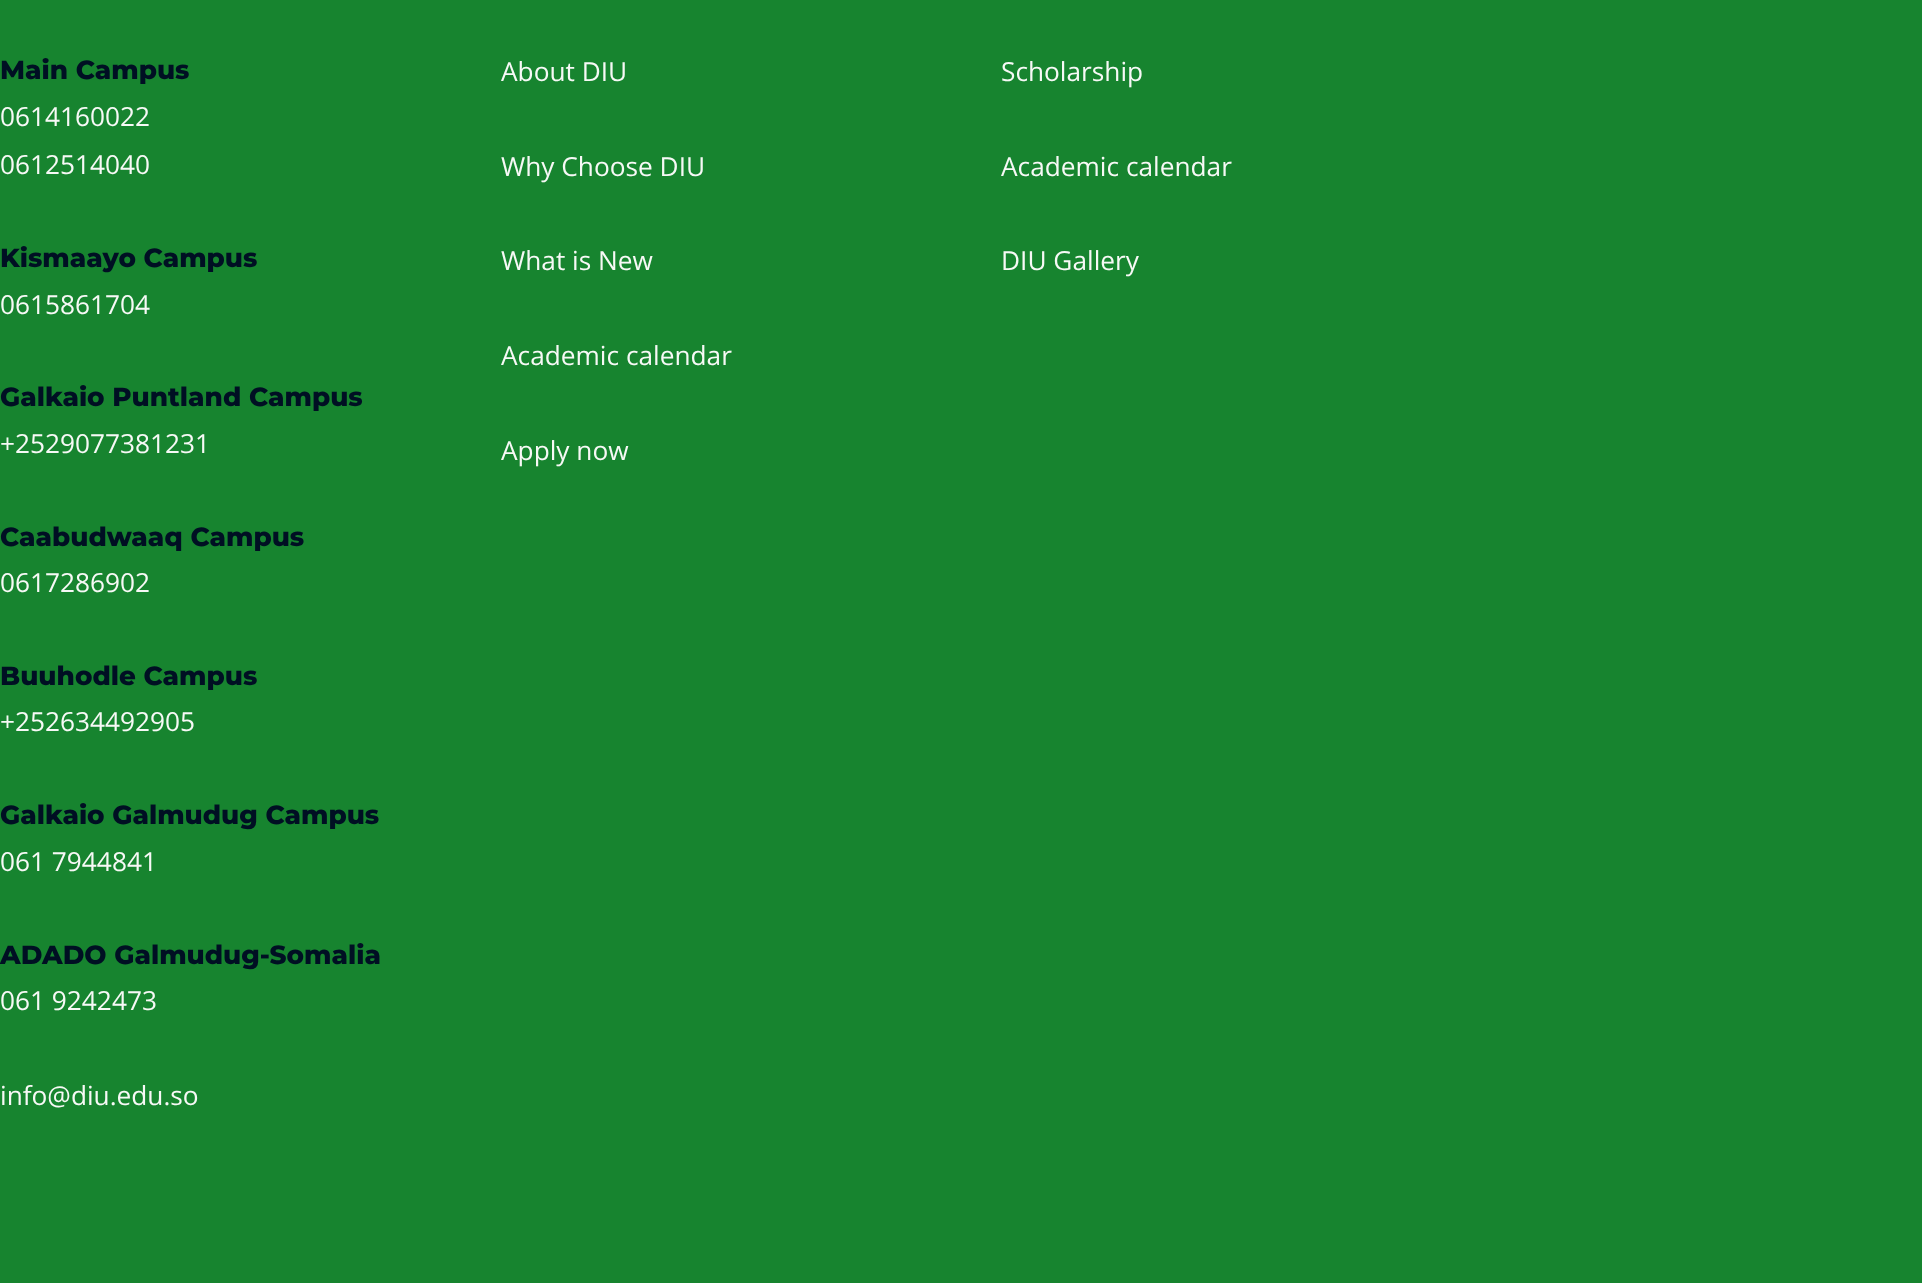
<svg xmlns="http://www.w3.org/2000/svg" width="1922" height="1283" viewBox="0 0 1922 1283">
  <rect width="100%" height="100%" fill="#17842f"/>
  <text x="0" y="79" font-family="Montserrat" font-size="26.25" font-weight="100" fill="#000f23">Main Campus</text>
  <text x="0" y="126" font-family="Open Sans" font-size="26.25" fill="#f7f9f6">0614160022</text>
  <text x="0" y="174" font-family="Open Sans" font-size="26.25" fill="#f7f9f6">0612514040</text>
  <text x="0" y="267" font-family="Montserrat" font-size="26.25" font-weight="100" fill="#000f23">Kismaayo Campus</text>
  <text x="0" y="314" font-family="Open Sans" font-size="26.25" fill="#f7f9f6">0615861704</text>
  <text x="0" y="406" font-family="Montserrat" font-size="26.25" font-weight="100" fill="#000f23">Galkaio Puntland Campus</text>
  <text x="0" y="453" font-family="Open Sans" font-size="26.25" fill="#f7f9f6">+2529077381231</text>
  <text x="0" y="546" font-family="Montserrat" font-size="26.25" font-weight="100" fill="#000f23">Caabudwaaq Campus</text>
  <text x="0" y="592" font-family="Open Sans" font-size="26.25" fill="#f7f9f6">0617286902</text>
  <text x="0" y="685" font-family="Montserrat" font-size="26.25" font-weight="100" fill="#000f23">Buuhodle Campus</text>
  <text x="0" y="731" font-family="Open Sans" font-size="26.25" fill="#f7f9f6">+252634492905</text>
  <text x="0" y="824" font-family="Montserrat" font-size="26.25" font-weight="100" fill="#000f23">Galkaio Galmudug Campus</text>
  <text x="0" y="871" font-family="Open Sans" font-size="26.25" fill="#f7f9f6">061 7944841</text>
  <text x="0" y="964" font-family="Montserrat" font-size="26.25" font-weight="100" fill="#000f23">ADADO Galmudug-Somalia</text>
  <text x="0" y="1010" font-family="Open Sans" font-size="26.25" fill="#f7f9f6">061 9242473</text>
  <text x="0" y="1105" font-family="Open Sans" font-size="26.25" fill="#f7f9f6">info@diu.edu.so</text>
  <text x="501" y="81" font-family="Open Sans" font-size="26.25" fill="#f7f9f6">About DIU</text>
  <text x="501" y="176" font-family="Open Sans" font-size="26.25" fill="#f7f9f6">Why Choose DIU</text>
  <text x="501" y="270" font-family="Open Sans" font-size="26.25" fill="#f7f9f6">What is New</text>
  <text x="501" y="365" font-family="Open Sans" font-size="26.25" fill="#f7f9f6">Academic calendar</text>
  <text x="501" y="460" font-family="Open Sans" font-size="26.25" fill="#f7f9f6">Apply now</text>
  <text x="1001" y="81" font-family="Open Sans" font-size="26.25" fill="#f7f9f6">Scholarship</text>
  <text x="1001" y="176" font-family="Open Sans" font-size="26.25" fill="#f7f9f6">Academic calendar</text>
  <text x="1001" y="270" font-family="Open Sans" font-size="26.25" fill="#f7f9f6">DIU Gallery</text>
</svg>
